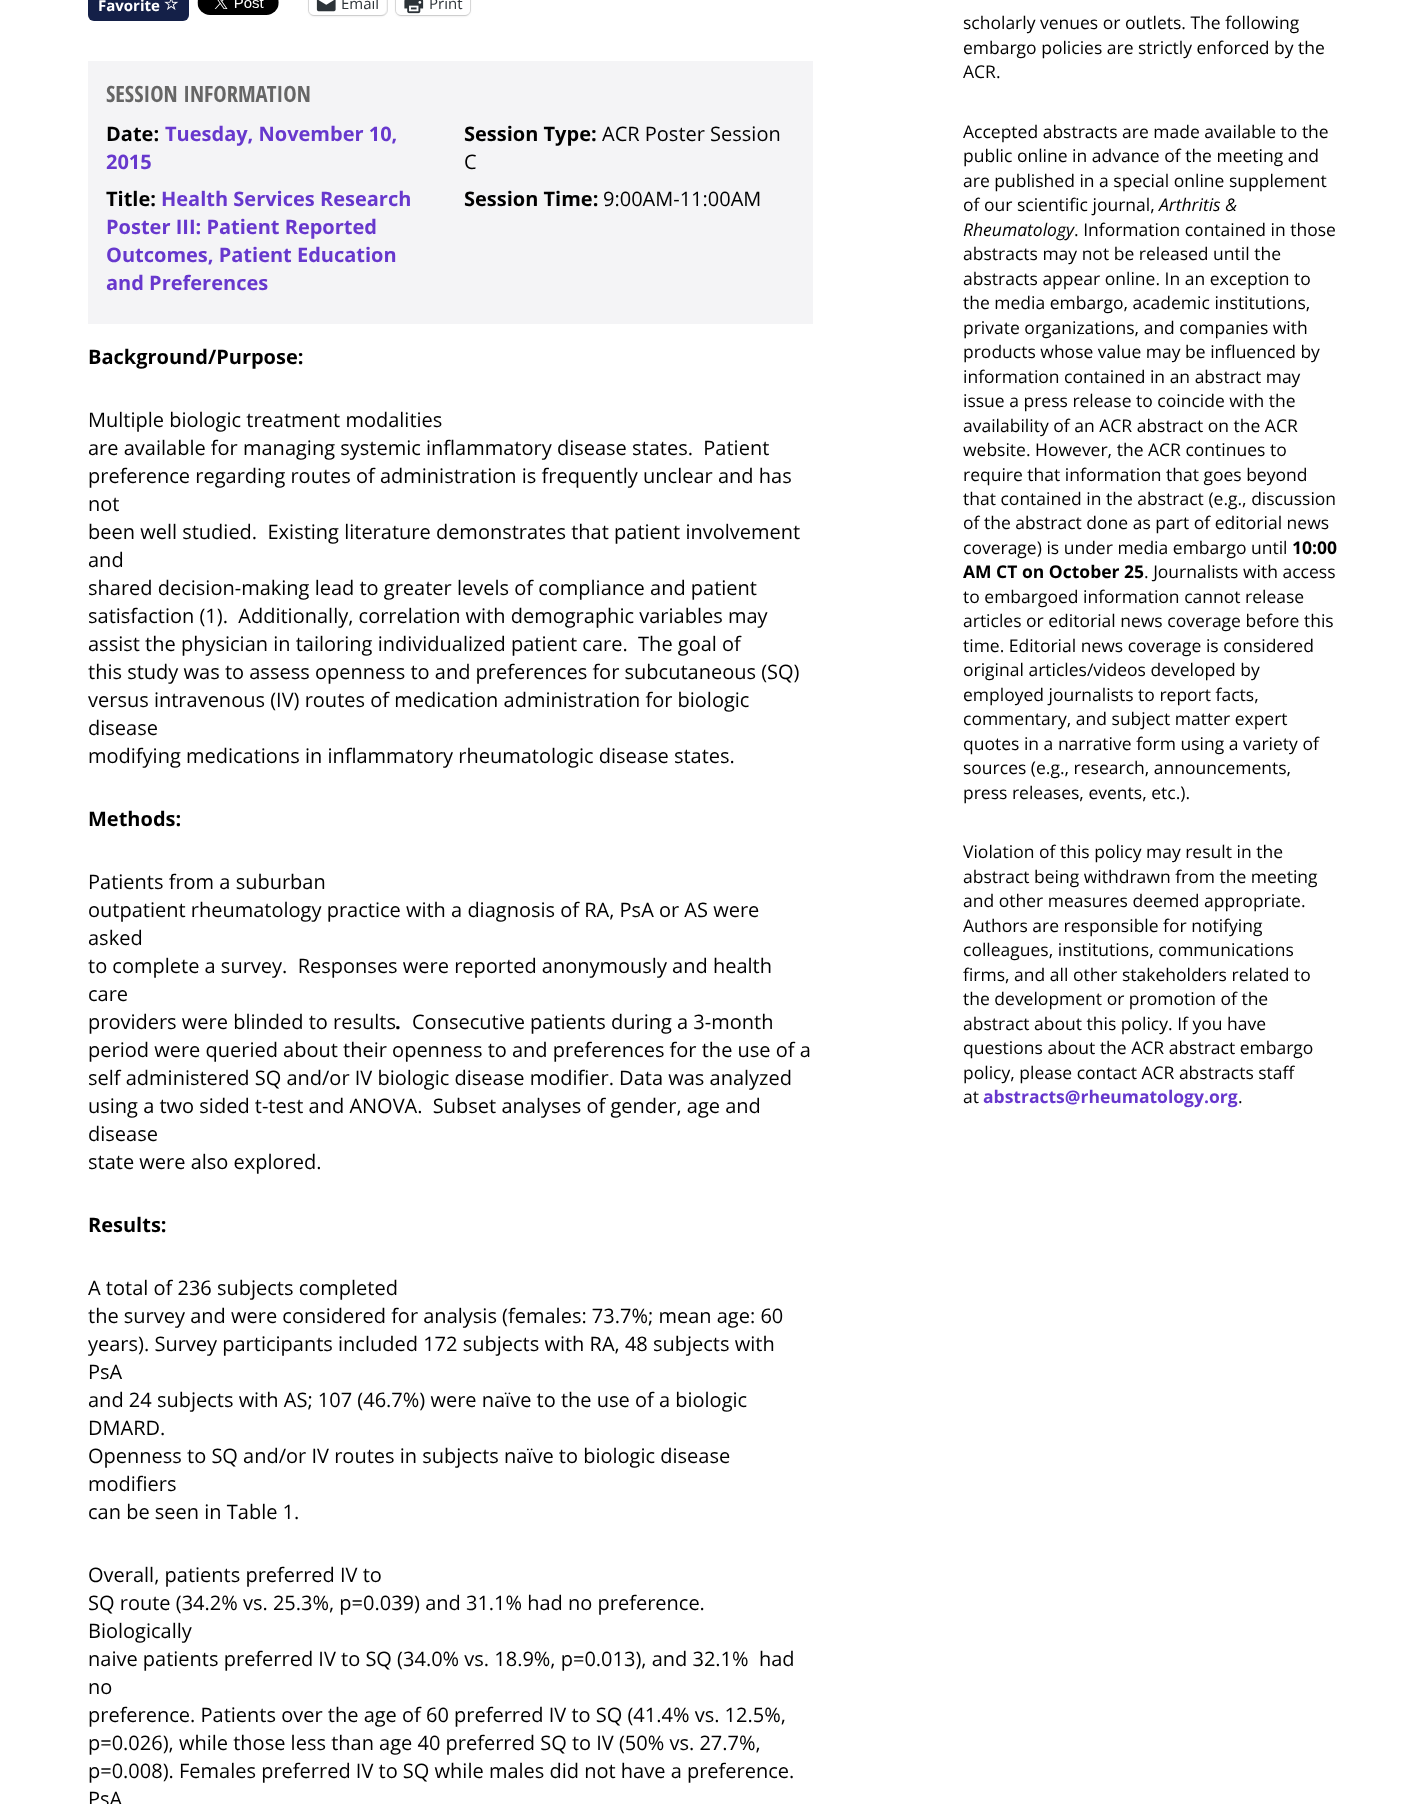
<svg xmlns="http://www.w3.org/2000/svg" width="1425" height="1804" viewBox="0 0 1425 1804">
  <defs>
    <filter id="blur1" x="-50%" y="-200%" width="200%" height="500%"><feGaussianBlur stdDeviation="1"/></filter>
  </defs>
  <rect width="100%" height="100%" fill="#ffffff"/>
  <rect x="88" y="-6" width="101" height="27" rx="6" fill="#142048"/>
  <text x="98" y="11" font-family="Open Sans" font-size="15" font-weight="bold" fill="#ffffff">Favorite</text>
  <image x="164" y="0" width="15" height="10" href="img1.png"/>
  <image x="197" y="0" width="82" height="15" href="img2.png"/>
  <rect x="308.5" y="-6.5" width="79" height="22" rx="5.5" fill="none" stroke="#e0e0e0"/>
  <rect x="309" y="-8" width="77" height="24" rx="5" fill="#000000" fill-opacity="0.12" filter="url(#blur1)"/>
  <rect x="309" y="-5" width="77" height="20" rx="5" fill="#ffffff"/>
  <image x="316" y="0" width="20" height="12" href="img3.png"/>
  <text x="341" y="9" font-family="Open Sans" font-size="15" fill="#2c3338">Email</text>
  <rect x="395.5" y="-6.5" width="75" height="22" rx="5.5" fill="none" stroke="#e0e0e0"/>
  <rect x="396" y="-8" width="74" height="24" rx="5" fill="#000000" fill-opacity="0.12" filter="url(#blur1)"/>
  <rect x="396" y="-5" width="74" height="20" rx="5" fill="#ffffff"/>
  <image x="404" y="0" width="20" height="14" href="img4.png"/>
  <text x="429" y="9" font-family="Open Sans" font-size="15" fill="#2c3338">Print</text>
  <rect x="88" y="61" width="725" height="263" fill="#f4f4f6"/>
  <text x="106" y="102" font-family="Open Sans Condensed" font-size="22.5" font-weight="bold" fill="#666666">SESSION INFORMATION</text>
  <text x="106" y="141" font-family="Open Sans" font-size="20" font-weight="bold" fill="#000000">Date:</text>
  <text x="165" y="141" font-family="Open Sans" font-size="20" font-weight="bold" fill="#6738cd">Tuesday, November 10,</text>
  <text x="106" y="169" font-family="Open Sans" font-size="20" font-weight="bold" fill="#6738cd">2015</text>
  <text x="106" y="206" font-family="Open Sans" font-size="20" font-weight="bold" fill="#000000">Title:</text>
  <text x="161" y="206" font-family="Open Sans" font-size="20" font-weight="bold" fill="#6738cd">Health Services Research</text>
  <text x="106" y="234" font-family="Open Sans" font-size="20" font-weight="bold" fill="#6738cd">Poster III: Patient Reported</text>
  <text x="106" y="262" font-family="Open Sans" font-size="20" font-weight="bold" fill="#6738cd">Outcomes, Patient Education</text>
  <text x="106" y="290" font-family="Open Sans" font-size="20" font-weight="bold" fill="#6738cd">and Preferences</text>
  <text x="464" y="141" font-family="Open Sans" font-size="20" font-weight="bold" fill="#000000">Session Type:</text>
  <text x="602" y="141" font-family="Open Sans" font-size="20" fill="#000000">ACR Poster Session</text>
  <text x="464" y="169" font-family="Open Sans" font-size="20" fill="#000000">C</text>
  <text x="464" y="206" font-family="Open Sans" font-size="20" font-weight="bold" fill="#000000">Session Time:</text>
  <text x="603" y="206" font-family="Open Sans" font-size="20" fill="#000000">9:00AM-11:00AM</text>
  <text x="88" y="364" font-family="Open Sans" font-size="20" font-weight="bold" fill="#000000">Background/Purpose:</text>
  <text x="88" y="427" font-family="Open Sans" font-size="20" fill="#000000">Multiple biologic treatment modalities</text>
  <text x="88" y="455" font-family="Open Sans" font-size="20" fill="#000000" xml:space="preserve">are available for managing systemic inflammatory disease states.  Patient</text>
  <text x="88" y="483" font-family="Open Sans" font-size="20" fill="#000000">preference regarding routes of administration is frequently unclear and has</text>
  <text x="88" y="511" font-family="Open Sans" font-size="20" fill="#000000">not</text>
  <text x="88" y="539" font-family="Open Sans" font-size="20" fill="#000000" xml:space="preserve">been well studied.  Existing literature demonstrates that patient involvement</text>
  <text x="88" y="567" font-family="Open Sans" font-size="20" fill="#000000">and</text>
  <text x="88" y="595" font-family="Open Sans" font-size="20" fill="#000000">shared decision-making lead to greater levels of compliance and patient</text>
  <text x="88" y="623" font-family="Open Sans" font-size="20" fill="#000000" xml:space="preserve">satisfaction (1).  Additionally, correlation with demographic variables may</text>
  <text x="88" y="651" font-family="Open Sans" font-size="20" fill="#000000" xml:space="preserve">assist the physician in tailoring individualized patient care.  The goal of</text>
  <text x="88" y="679" font-family="Open Sans" font-size="20" fill="#000000">this study was to assess openness to and preferences for subcutaneous (SQ)</text>
  <text x="88" y="707" font-family="Open Sans" font-size="20" fill="#000000">versus intravenous (IV) routes of medication administration for biologic</text>
  <text x="88" y="735" font-family="Open Sans" font-size="20" fill="#000000">disease</text>
  <text x="88" y="763" font-family="Open Sans" font-size="20" fill="#000000">modifying medications in inflammatory rheumatologic disease states.</text>
  <text x="88" y="826" font-family="Open Sans" font-size="20" font-weight="bold" fill="#000000">Methods:</text>
  <text x="88" y="889" font-family="Open Sans" font-size="20" fill="#000000">Patients from a suburban</text>
  <text x="88" y="917" font-family="Open Sans" font-size="20" fill="#000000">outpatient rheumatology practice with a diagnosis of RA, PsA or AS were</text>
  <text x="88" y="945" font-family="Open Sans" font-size="20" fill="#000000">asked</text>
  <text x="88" y="973" font-family="Open Sans" font-size="20" fill="#000000" xml:space="preserve">to complete a survey.  Responses were reported anonymously and health</text>
  <text x="88" y="1001" font-family="Open Sans" font-size="20" fill="#000000">care</text>
  <text x="88" y="1029" font-family="Open Sans" font-size="20" fill="#000000">providers were blinded to results</text>
  <text x="395" y="1029" font-family="Open Sans" font-size="20" font-weight="bold" fill="#000000">.</text>
  <text x="412" y="1029" font-family="Open Sans" font-size="20" fill="#000000">Consecutive patients during a 3-month</text>
  <text x="88" y="1057" font-family="Open Sans" font-size="20" fill="#000000">period were queried about their openness to and preferences for the use of a</text>
  <text x="88" y="1085" font-family="Open Sans" font-size="20" fill="#000000">self administered SQ and/or IV biologic disease modifier. Data was analyzed</text>
  <text x="88" y="1113" font-family="Open Sans" font-size="20" fill="#000000" xml:space="preserve">using a two sided t-test and ANOVA.  Subset analyses of gender, age and</text>
  <text x="88" y="1141" font-family="Open Sans" font-size="20" fill="#000000">disease</text>
  <text x="88" y="1169" font-family="Open Sans" font-size="20" fill="#000000">state were also explored.</text>
  <text x="88" y="1232" font-family="Open Sans" font-size="20" font-weight="bold" fill="#000000">Results:</text>
  <text x="88" y="1295" font-family="Open Sans" font-size="20" fill="#000000">A total of 236 subjects completed</text>
  <text x="88" y="1323" font-family="Open Sans" font-size="20" fill="#000000">the survey and were considered for analysis (females: 73.7%; mean age: 60</text>
  <text x="88" y="1351" font-family="Open Sans" font-size="20" fill="#000000">years). Survey participants included 172 subjects with RA, 48 subjects with</text>
  <text x="88" y="1379" font-family="Open Sans" font-size="20" fill="#000000">PsA</text>
  <text x="88" y="1407" font-family="Open Sans" font-size="20" fill="#000000">and 24 subjects with AS; 107 (46.7%) were naïve to the use of a biologic</text>
  <text x="88" y="1435" font-family="Open Sans" font-size="20" fill="#000000">DMARD.</text>
  <text x="88" y="1463" font-family="Open Sans" font-size="20" fill="#000000">Openness to SQ and/or IV routes in subjects naïve to biologic disease</text>
  <text x="88" y="1491" font-family="Open Sans" font-size="20" fill="#000000">modifiers</text>
  <text x="88" y="1519" font-family="Open Sans" font-size="20" fill="#000000">can be seen in Table 1.</text>
  <text x="88" y="1582" font-family="Open Sans" font-size="20" fill="#000000">Overall, patients preferred IV to</text>
  <text x="88" y="1610" font-family="Open Sans" font-size="20" fill="#000000">SQ route (34.2% vs. 25.3%, p=0.039) and 31.1% had no preference.</text>
  <text x="88" y="1638" font-family="Open Sans" font-size="20" fill="#000000">Biologically</text>
  <text x="88" y="1666" font-family="Open Sans" font-size="20" fill="#000000" xml:space="preserve">naive patients preferred IV to SQ (34.0% vs. 18.9%, p=0.013), and 32.1%  had</text>
  <text x="88" y="1694" font-family="Open Sans" font-size="20" fill="#000000">no</text>
  <text x="88" y="1722" font-family="Open Sans" font-size="20" fill="#000000">preference. Patients over the age of 60 preferred IV to SQ (41.4% vs. 12.5%,</text>
  <text x="88" y="1750" font-family="Open Sans" font-size="20" fill="#000000">p=0.026), while those less than age 40 preferred SQ to IV (50% vs. 27.7%,</text>
  <text x="88" y="1778" font-family="Open Sans" font-size="20" fill="#000000">p=0.008). Females preferred IV to SQ while males did not have a preference.</text>
  <text x="88" y="1806" font-family="Open Sans" font-size="20" fill="#000000">PsA</text>
  <text x="963" y="29" font-family="Open Sans" font-size="17.5" fill="#000000">scholarly venues or outlets. The following</text>
  <text x="963" y="54" font-family="Open Sans" font-size="17.5" fill="#000000">embargo policies are strictly enforced by the</text>
  <text x="963" y="78" font-family="Open Sans" font-size="17.5" fill="#000000">ACR.</text>
  <text x="963" y="138" font-family="Open Sans" font-size="17.5" fill="#000000">Accepted abstracts are made available to the</text>
  <text x="963" y="162" font-family="Open Sans" font-size="17.5" fill="#000000">public online in advance of the meeting and</text>
  <text x="963" y="187" font-family="Open Sans" font-size="17.5" fill="#000000">are published in a special online supplement</text>
  <text x="963" y="211" font-family="Open Sans" font-size="17.5" fill="#000000">of our scientific journal,</text>
  <text x="1159" y="211" font-family="Open Sans" font-size="17.5" font-style="italic" fill="#000000">Arthritis &amp;</text>
  <text x="963" y="236" font-family="Open Sans" font-size="17.5" font-style="italic" fill="#000000">Rheumatology</text>
  <text x="1074" y="236" font-family="Open Sans" font-size="17.5" fill="#000000">. Information contained in those</text>
  <text x="963" y="260" font-family="Open Sans" font-size="17.5" fill="#000000">abstracts may not be released until the</text>
  <text x="963" y="285" font-family="Open Sans" font-size="17.5" fill="#000000">abstracts appear online. In an exception to</text>
  <text x="963" y="309" font-family="Open Sans" font-size="17.5" fill="#000000">the media embargo, academic institutions,</text>
  <text x="963" y="334" font-family="Open Sans" font-size="17.5" fill="#000000">private organizations, and companies with</text>
  <text x="963" y="358" font-family="Open Sans" font-size="17.5" fill="#000000">products whose value may be influenced by</text>
  <text x="963" y="383" font-family="Open Sans" font-size="17.5" fill="#000000">information contained in an abstract may</text>
  <text x="963" y="407" font-family="Open Sans" font-size="17.5" fill="#000000">issue a press release to coincide with the</text>
  <text x="963" y="432" font-family="Open Sans" font-size="17.5" fill="#000000">availability of an ACR abstract on the ACR</text>
  <text x="963" y="456" font-family="Open Sans" font-size="17.5" fill="#000000">website. However, the ACR continues to</text>
  <text x="963" y="481" font-family="Open Sans" font-size="17.5" fill="#000000">require that information that goes beyond</text>
  <text x="963" y="505" font-family="Open Sans" font-size="17.5" fill="#000000">that contained in the abstract (e.g., discussion</text>
  <text x="963" y="529" font-family="Open Sans" font-size="17.5" fill="#000000">of the abstract done as part of editorial news</text>
  <text x="963" y="554" font-family="Open Sans" font-size="17.5" fill="#000000">coverage) is under media embargo until</text>
  <text x="1292" y="554" font-family="Open Sans" font-size="17.5" font-weight="bold" fill="#000000">10:00</text>
  <text x="963" y="578" font-family="Open Sans" font-size="17.5" font-weight="bold" fill="#000000">AM CT on October 25</text>
  <text x="1144" y="578" font-family="Open Sans" font-size="17.5" fill="#000000">. Journalists with access</text>
  <text x="963" y="603" font-family="Open Sans" font-size="17.5" fill="#000000">to embargoed information cannot release</text>
  <text x="963" y="627" font-family="Open Sans" font-size="17.5" fill="#000000">articles or editorial news coverage before this</text>
  <text x="963" y="652" font-family="Open Sans" font-size="17.5" fill="#000000">time. Editorial news coverage is considered</text>
  <text x="963" y="676" font-family="Open Sans" font-size="17.5" fill="#000000">original articles/videos developed by</text>
  <text x="963" y="701" font-family="Open Sans" font-size="17.5" fill="#000000">employed journalists to report facts,</text>
  <text x="963" y="725" font-family="Open Sans" font-size="17.5" fill="#000000">commentary, and subject matter expert</text>
  <text x="963" y="750" font-family="Open Sans" font-size="17.5" fill="#000000">quotes in a narrative form using a variety of</text>
  <text x="963" y="774" font-family="Open Sans" font-size="17.5" fill="#000000">sources (e.g., research, announcements,</text>
  <text x="963" y="799" font-family="Open Sans" font-size="17.5" fill="#000000">press releases, events, etc.).</text>
  <text x="963" y="858" font-family="Open Sans" font-size="17.5" fill="#000000">Violation of this policy may result in the</text>
  <text x="963" y="883" font-family="Open Sans" font-size="17.5" fill="#000000">abstract being withdrawn from the meeting</text>
  <text x="963" y="907" font-family="Open Sans" font-size="17.5" fill="#000000">and other measures deemed appropriate.</text>
  <text x="963" y="932" font-family="Open Sans" font-size="17.5" fill="#000000">Authors are responsible for notifying</text>
  <text x="963" y="956" font-family="Open Sans" font-size="17.5" fill="#000000">colleagues, institutions, communications</text>
  <text x="963" y="981" font-family="Open Sans" font-size="17.5" fill="#000000">firms, and all other stakeholders related to</text>
  <text x="963" y="1005" font-family="Open Sans" font-size="17.5" fill="#000000">the development or promotion of the</text>
  <text x="963" y="1030" font-family="Open Sans" font-size="17.5" fill="#000000">abstract about this policy. If you have</text>
  <text x="963" y="1054" font-family="Open Sans" font-size="17.5" fill="#000000">questions about the ACR abstract embargo</text>
  <text x="963" y="1079" font-family="Open Sans" font-size="17.5" fill="#000000">policy, please contact ACR abstracts staff</text>
  <text x="963" y="1103" font-family="Open Sans" font-size="17.5" fill="#000000">at</text>
  <text x="983" y="1103" font-family="Open Sans" font-size="17.5" font-weight="bold" fill="#6738cd">abstracts@rheumatology.org</text>
  <text x="1238" y="1103" font-family="Open Sans" font-size="17.5" fill="#000000">.</text>
</svg>
